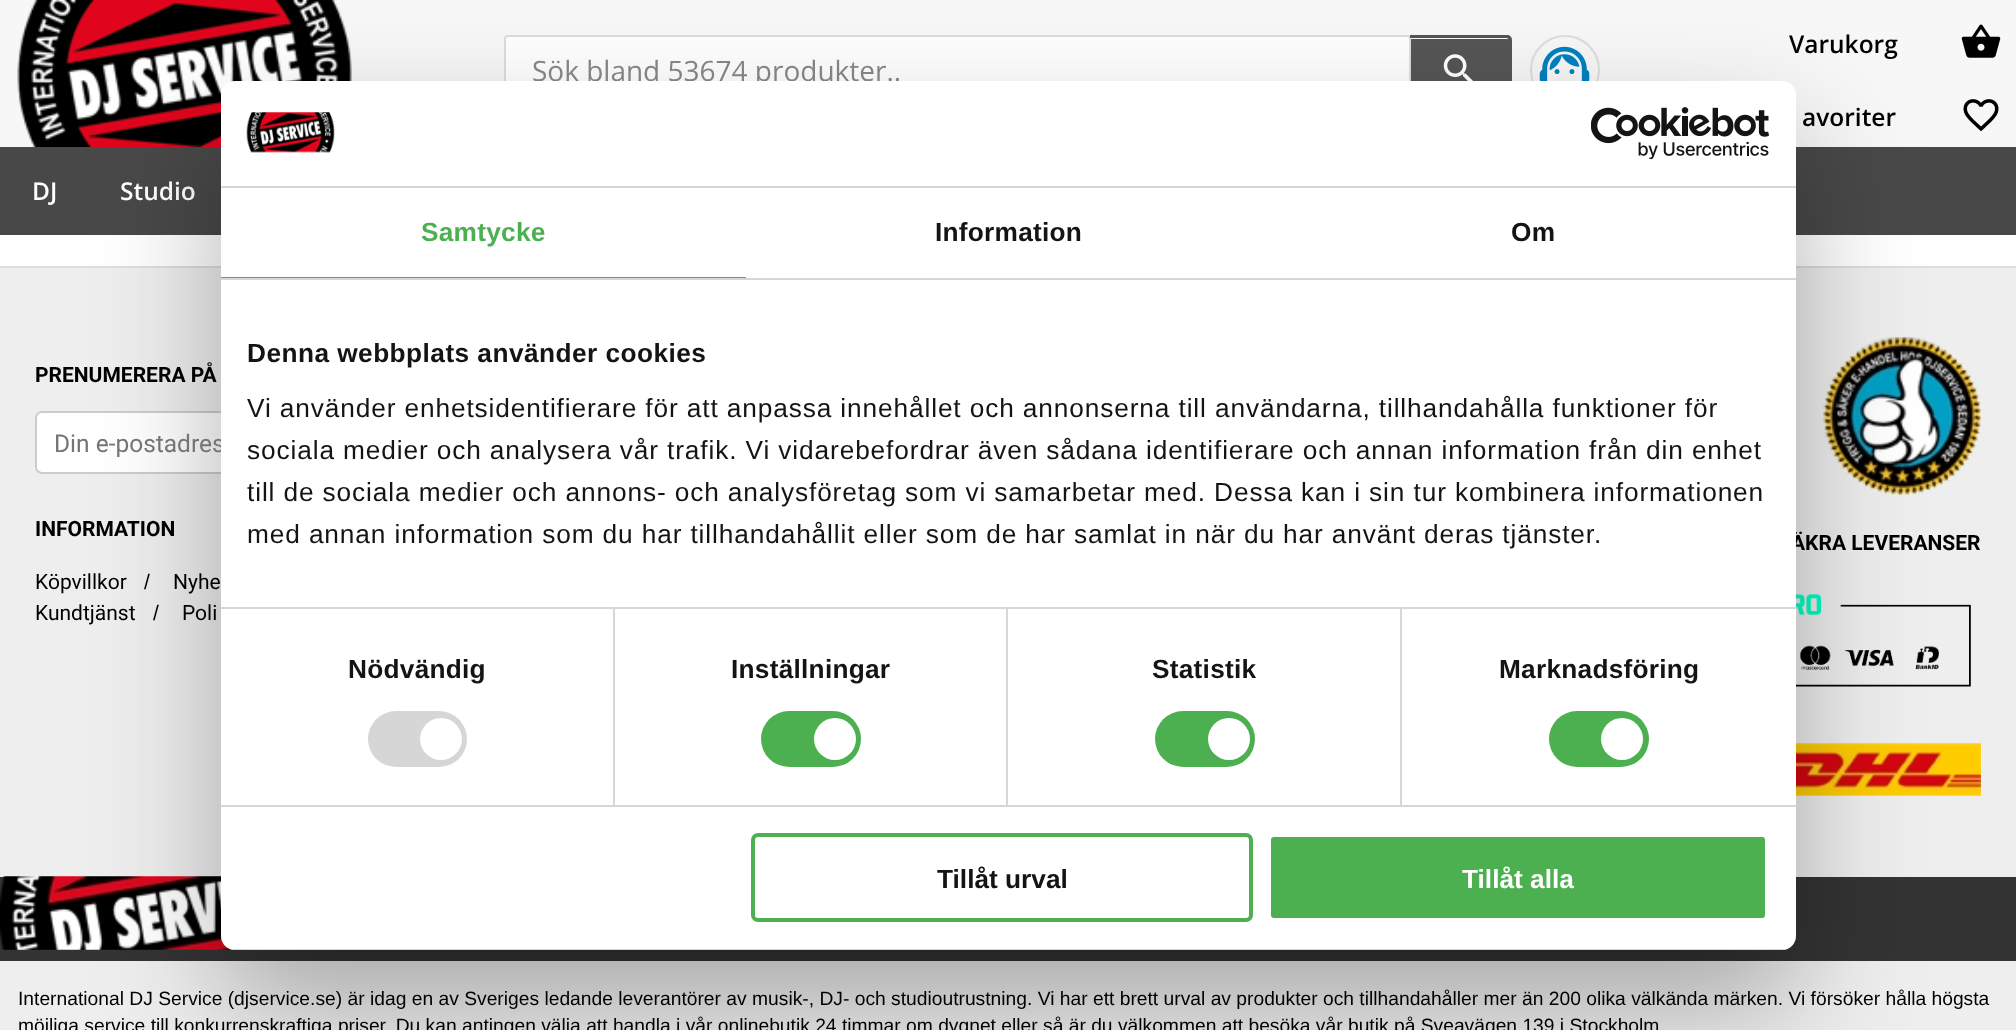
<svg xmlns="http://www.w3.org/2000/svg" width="2016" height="1030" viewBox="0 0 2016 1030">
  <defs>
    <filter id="blur1" x="-50%" y="-200%" width="200%" height="500%"><feGaussianBlur stdDeviation="59.5"/></filter>
    <clipPath id="clip1"><rect x="221" y="81" width="1575" height="869" rx="14"/></clipPath>
  </defs>
  <rect width="100%" height="100%" fill="#ffffff"/>
  <rect x="0" y="0" width="2016" height="147" fill="#f7f7f7"/>
  <image x="17" y="0" width="335" height="147" href="img1.png"/>
  <rect x="505" y="36" width="905" height="68" rx="3" fill="#ffffff" stroke="#dddddd" stroke-width="2"/>
  <text x="532" y="81" font-family="Open Sans" font-size="28" fill="#888888">Sök bland 53674 produkter..</text>
  <path d="M1411 39H1507C1508 39 1509 40 1509 41V100C1509 101 1508 102 1507 102H1411Z" fill="#555555"/>
  <image x="1443" y="54" width="30" height="27" href="img2.png"/>
  <path d="M1410 35H1507C1510 35 1512 37 1512 40V100C1512 103 1510 105 1507 105H1410ZM1410 38H1507C1508 38 1508 39 1508 40V100C1508 101 1508 102 1507 102H1410Z" fill="#555555" fill-rule="evenodd"/>
  <circle cx="1565" cy="70" r="34" fill="none" stroke="#dddddd" stroke-width="2"/>
  <image x="1539" y="46" width="51" height="35" href="img3.png"/>
  <text x="1789" y="53" font-family="Open Sans" font-size="24.5" font-weight="600" fill="#000000">Varukorg</text>
  <image x="1961" y="24" width="40" height="34" href="img4.png"/>
  <text x="1802" y="126" font-family="Open Sans" font-size="24.5" font-weight="600" fill="#000000">avoriter</text>
  <image x="1963" y="99" width="36" height="33" href="img5.png"/>
  <rect x="0" y="147" width="2016" height="88" fill="#484848"/>
  <text x="32" y="200" font-family="Open Sans" font-size="24.5" font-weight="600" fill="#ffffff">DJ</text>
  <text x="120" y="200" font-family="Open Sans" font-size="24.5" font-weight="600" fill="#ffffff">Studio</text>
  <rect x="0" y="268" width="2016" height="762" fill="#eeeeee"/>
  <rect x="0" y="266" width="2016" height="2" fill="#dddddd"/>
  <rect x="36" y="412" width="628" height="61" rx="6" fill="#ffffff" stroke="#cccccc" stroke-width="2"/>
  <image x="1823" y="337" width="158" height="158" href="img8.png"/>
  <image x="1796" y="594" width="175" height="93" href="img9.png"/>
  <image x="1796" y="743" width="185" height="53" href="img10.png"/>
  <rect x="0" y="877" width="2016" height="84" fill="#333333"/>
  <image x="0" y="876" width="235" height="74" href="img11.png"/>
  <rect x="221" y="137" width="1575" height="869" rx="14" fill="#000000" fill-opacity="0.3" filter="url(#blur1)"/>
  <text x="54" y="452" font-family="Roboto" font-size="24.5" fill="#757575">Din e-postadres</text>
  <text x="1791" y="550" font-family="Roboto" font-size="21" font-weight="bold" fill="#000000">ÄKRA LEVERANSER</text>
  <rect x="221" y="81" width="1575" height="869" rx="14" fill="#ffffff"/>
  <rect x="221" y="186" width="1575" height="2" fill="#d6d6d6"/>
  <image x="246" y="112" width="89" height="41" href="img6.png"/>
  <image x="1591" y="107" width="178" height="52" href="img7.png"/>
  <rect x="221" y="278" width="1575" height="2" fill="#d6d6d6"/>
  <rect x="221" y="277" width="525" height="1" fill="#4caf50"/>
  <text x="421" y="241" font-family="Liberation Sans" font-size="26.25" font-weight="bold" letter-spacing="0.25" fill="#4caf50">Samtycke</text>
  <text x="935" y="241" font-family="Liberation Sans" font-size="26.25" font-weight="bold" letter-spacing="0.25" fill="#141414">Information</text>
  <text x="1511" y="241" font-family="Liberation Sans" font-size="26.25" font-weight="bold" letter-spacing="0.25" fill="#141414">Om</text>
  <rect x="221" y="607" width="1575" height="2" fill="#d6d6d6"/>
  <text x="247" y="362" font-family="Liberation Sans" font-size="26.25" font-weight="bold" letter-spacing="0.45" fill="#141414">Denna webbplats använder cookies</text>
  <text x="247" y="417" font-family="Liberation Sans" font-size="26.25" letter-spacing="0.88" fill="#141414">Vi använder enhetsidentifierare för att anpassa innehållet och annonserna till användarna, tillhandahålla funktioner för</text>
  <text x="247" y="459" font-family="Liberation Sans" font-size="26.25" letter-spacing="0.88" fill="#141414">sociala medier och analysera vår trafik. Vi vidarebefordrar även sådana identifierare och annan information från din enhet</text>
  <text x="247" y="501" font-family="Liberation Sans" font-size="26.25" letter-spacing="0.88" fill="#141414">till de sociala medier och annons- och analysföretag som vi samarbetar med. Dessa kan i sin tur kombinera informationen</text>
  <text x="247" y="543" font-family="Liberation Sans" font-size="26.25" letter-spacing="0.88" fill="#141414">med annan information som du har tillhandahållit eller som de har samlat in när du har använt deras tjänster.</text>
  <rect x="221" y="805" width="1575" height="2" fill="#d6d6d6"/>
  <rect x="613" y="609" width="2" height="196" fill="#d6d6d6"/>
  <text x="348" y="678" font-family="Liberation Sans" font-size="26.25" font-weight="bold" letter-spacing="0.25" fill="#141414">Nödvändig</text>
  <rect x="368" y="711" width="99" height="56" rx="28" fill="#d6d6d6"/>
  <circle cx="441" cy="739" r="21" fill="#ffffff"/>
  <rect x="1006" y="609" width="2" height="196" fill="#d6d6d6"/>
  <text x="731" y="678" font-family="Liberation Sans" font-size="26.25" font-weight="bold" letter-spacing="0.25" fill="#141414">Inställningar</text>
  <rect x="761" y="711" width="100" height="56" rx="28" fill="#4caf50"/>
  <circle cx="835" cy="739" r="21" fill="#ffffff"/>
  <rect x="1400" y="609" width="2" height="196" fill="#d6d6d6"/>
  <text x="1152" y="678" font-family="Liberation Sans" font-size="26.25" font-weight="bold" letter-spacing="0.25" fill="#141414">Statistik</text>
  <rect x="1155" y="711" width="100" height="56" rx="28" fill="#4caf50"/>
  <circle cx="1229" cy="739" r="21" fill="#ffffff"/>
  <text x="1499" y="678" font-family="Liberation Sans" font-size="26.25" font-weight="bold" letter-spacing="0.25" fill="#141414">Marknadsföring</text>
  <rect x="1549" y="711" width="100" height="56" rx="28" fill="#4caf50"/>
  <circle cx="1622" cy="739" r="21" fill="#ffffff"/>
  <g clip-path="url(#clip1)">
    <rect x="230" y="949" width="1557" height="1" fill="#d6d6d6"/>
  </g>
  <rect x="753" y="835" width="498" height="85" rx="5" fill="none" stroke="#4caf50" stroke-width="4"/>
  <text x="937" y="888" font-family="Liberation Sans" font-size="26.25" font-weight="bold" fill="#141414">Tillåt urval</text>
  <rect x="1269" y="835" width="498" height="85" rx="5" fill="#4caf50" stroke="#ffffff" stroke-width="4"/>
  <text x="1462" y="888" font-family="Liberation Sans" font-size="26.25" font-weight="bold" fill="#ffffff">Tillåt alla</text>
  <text x="35" y="382" font-family="Roboto" font-size="21" font-weight="bold" fill="#000000">PRENUMERERA PÅ</text>
  <text x="35" y="536" font-family="Roboto" font-size="21" font-weight="bold" fill="#000000">INFORMATION</text>
  <text x="35" y="589" font-family="Roboto" font-size="21" fill="#000000">Köpvillkor</text>
  <text x="144" y="589" font-family="Liberation Sans" font-size="21" fill="#000000">/</text>
  <text x="173" y="589" font-family="Roboto" font-size="21" fill="#000000">Nyhe</text>
  <text x="35" y="620" font-family="Roboto" font-size="21" fill="#000000">Kundtjänst</text>
  <text x="153" y="620" font-family="Liberation Sans" font-size="21" fill="#000000">/</text>
  <text x="182" y="620" font-family="Roboto" font-size="21" fill="#000000">Poli</text>
  <text x="18" y="1005" font-family="Liberation Sans" font-size="19.25" fill="#000000">International DJ Service (djservice.se) är idag en av Sveriges ledande leverantörer av musik-, DJ- och studioutrustning. Vi har ett brett urval av produkter och tillhandahåller mer än 200 olika välkända märken. Vi försöker hålla högsta</text>
  <text x="18" y="1032" font-family="Liberation Sans" font-size="19.25" fill="#000000">möjliga service till konkurrenskraftiga priser. Du kan antingen välja att handla i vår onlinebutik 24 timmar om dygnet eller så är du välkommen att besöka vår butik på Sveavägen 139 i Stockholm</text>
</svg>
